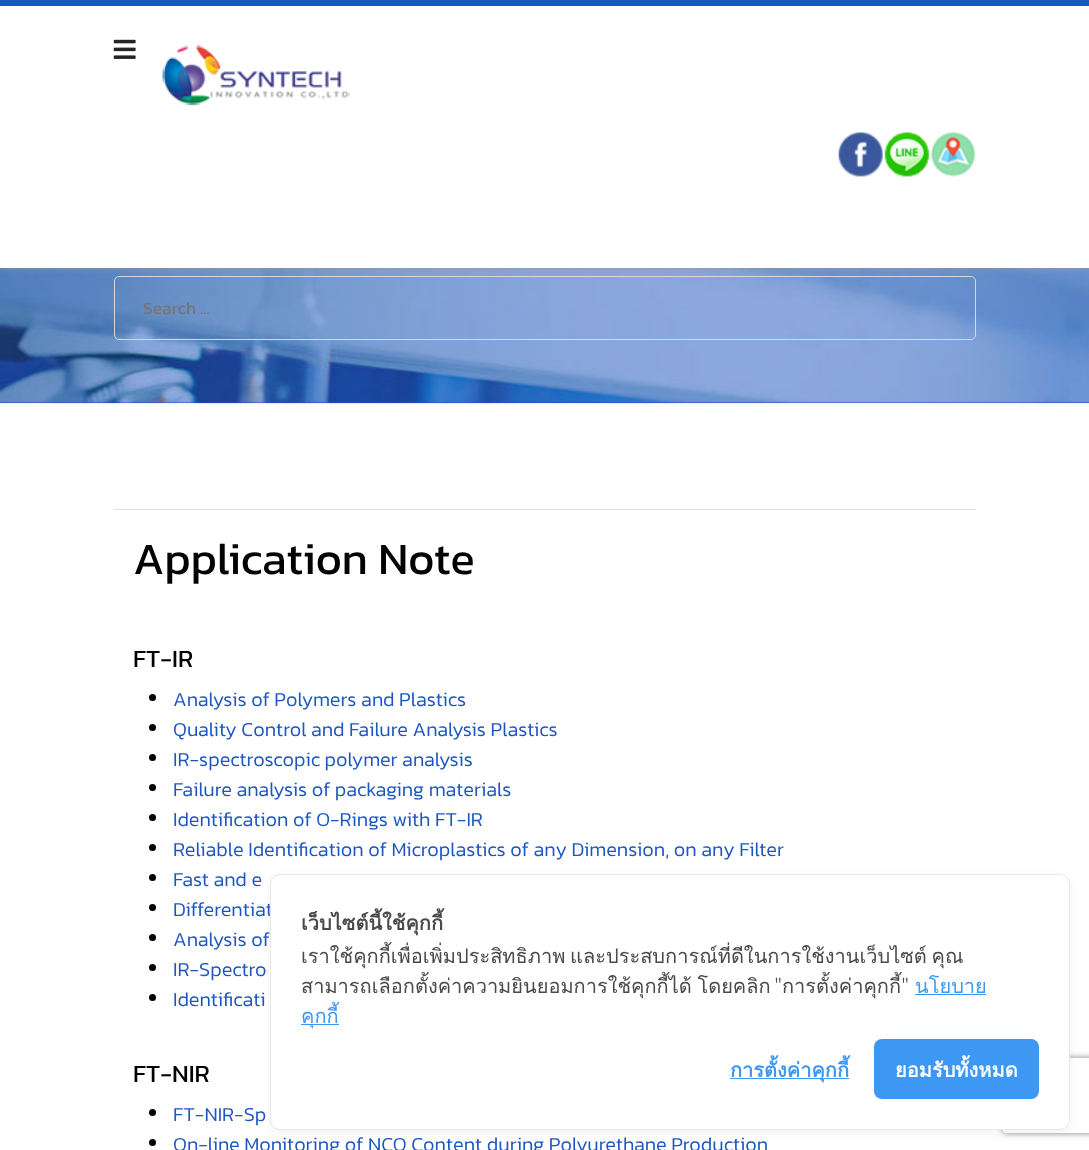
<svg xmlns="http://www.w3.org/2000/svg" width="1089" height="1150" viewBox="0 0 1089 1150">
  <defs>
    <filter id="blur1" x="-50%" y="-200%" width="200%" height="500%"><feGaussianBlur stdDeviation="3"/></filter>
    <filter id="blur2" x="-50%" y="-200%" width="200%" height="500%"><feGaussianBlur stdDeviation="5"/></filter>
    <clipPath id="clip1"><path d="M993 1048H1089V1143H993ZM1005.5 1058H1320.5C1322 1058 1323 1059 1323 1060.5V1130.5C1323 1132 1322 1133 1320.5 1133H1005.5C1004 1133 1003 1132 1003 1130.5V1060.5C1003 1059 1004 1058 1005.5 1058Z" clip-rule="evenodd"/></clipPath>
  </defs>
  <rect width="100%" height="100%" fill="#ffffff"/>
  <rect x="0" y="401" width="1089" height="2" fill="#1d55c1"/>
  <image x="0" y="268" width="1089" height="136" href="img6.png"/>
  <rect x="114.5" y="276.5" width="861" height="63" rx="4.5" fill="none" stroke="#d8d8d8"/>
  <rect x="0" y="0" width="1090" height="268" fill="#979797" fill-opacity="0.88" filter="url(#blur1)"/>
  <rect x="0" y="6" width="1089" height="262" fill="#ffffff"/>
  <rect x="0" y="0" width="1089" height="6" fill="#1d55c1"/>
  <image x="113" y="39" width="23" height="20" href="img1.png"/>
  <image x="162" y="44" width="188" height="62" href="img2.png"/>
  <image x="838" y="132" width="45" height="45" href="img3.png"/>
  <image x="884" y="132" width="45" height="45" href="img4.png"/>
  <image x="930" y="132" width="46" height="45" href="img5.png"/>
  <text x="143" y="314" font-family="Kanit" font-size="17.5" fill="#757575">Search ...</text>
  <rect x="114" y="509" width="862" height="1" fill="#dee2e9"/>
  <text x="133" y="574" font-family="Kanit" font-size="45" fill="#030303">Application Note</text>
  <text x="133" y="667" font-family="Kanit" font-size="25" fill="#030303">FT-IR</text>
  <circle cx="152.5" cy="697.5" r="3.5" fill="#030303"/>
  <text x="173" y="706" font-family="Kanit" font-size="20" font-weight="300" fill="#1d55c1">Analysis of Polymers and Plastics</text>
  <circle cx="152.5" cy="727.5" r="3.5" fill="#030303"/>
  <text x="173" y="736" font-family="Kanit" font-size="20" font-weight="300" fill="#1d55c1">Quality Control and Failure Analysis Plastics</text>
  <circle cx="152.5" cy="757.5" r="3.5" fill="#030303"/>
  <text x="173" y="766" font-family="Kanit" font-size="20" font-weight="300" fill="#1d55c1">IR-spectroscopic polymer analysis</text>
  <circle cx="152.5" cy="787.5" r="3.5" fill="#030303"/>
  <text x="173" y="796" font-family="Kanit" font-size="20" font-weight="300" fill="#1d55c1">Failure analysis of packaging materials</text>
  <circle cx="152.5" cy="817.5" r="3.5" fill="#030303"/>
  <text x="173" y="826" font-family="Kanit" font-size="20" font-weight="300" fill="#1d55c1">Identification of O-Rings with FT-IR</text>
  <circle cx="152.5" cy="847.5" r="3.5" fill="#030303"/>
  <text x="173" y="856" font-family="Kanit" font-size="20" font-weight="300" fill="#1d55c1">Reliable Identification of Microplastics of any Dimension, on any Filter</text>
  <circle cx="152.5" cy="877.5" r="3.5" fill="#030303"/>
  <text x="173" y="886" font-family="Kanit" font-size="20" font-weight="300" fill="#1d55c1">Fast and e</text>
  <circle cx="152.5" cy="907.5" r="3.5" fill="#030303"/>
  <text x="173" y="916" font-family="Kanit" font-size="20" font-weight="300" fill="#1d55c1">Differentiat</text>
  <circle cx="152.5" cy="937.5" r="3.5" fill="#030303"/>
  <text x="173" y="946" font-family="Kanit" font-size="20" font-weight="300" fill="#1d55c1">Analysis of</text>
  <circle cx="152.5" cy="967.5" r="3.5" fill="#030303"/>
  <text x="173" y="976" font-family="Kanit" font-size="20" font-weight="300" fill="#1d55c1">IR-Spectro</text>
  <circle cx="152.5" cy="997.5" r="3.5" fill="#030303"/>
  <text x="173" y="1006" font-family="Kanit" font-size="20" font-weight="300" fill="#1d55c1">Identificati</text>
  <text x="133" y="1082" font-family="Kanit" font-size="25" fill="#030303">FT-NIR</text>
  <circle cx="152.5" cy="1112.5" r="3.5" fill="#030303"/>
  <text x="173" y="1121" font-family="Kanit" font-size="20" font-weight="300" fill="#1d55c1">FT-NIR-Sp</text>
  <circle cx="152.5" cy="1142.5" r="3.5" fill="#030303"/>
  <text x="173" y="1151" font-family="Kanit" font-size="20" font-weight="300" fill="#1d55c1">On-line Monitoring of NCO Content during Polyurethane Production</text>
  <rect x="270" y="876" width="800" height="257" rx="10" fill="#000000" fill-opacity="0.05" filter="url(#blur2)"/>
  <g clip-path="url(#clip1)">
    <rect x="1003" y="1058" width="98" height="75" rx="2.5" fill="#808080" filter="url(#blur1)"/>
  </g>
  <rect x="270.5" y="874.5" width="799" height="255" rx="9.5" fill="#ffffff" stroke="#e8e8e8"/>
  <text x="301" y="930" font-family="Loma" font-size="20" font-weight="bold" fill="#4a4a4a">เว็บไซต์นี้ใช้คุกกี้</text>
  <text x="301" y="963" word-spacing="-2" font-family="Loma" font-size="20" fill="#4a4a4a">เราใช้คุกกี้เพื่อเพิ่มประสิทธิภาพ และประสบการณ์ที่ดีในการใช้งานเว็บไซต์ คุณ</text>
  <text x="301" y="993" word-spacing="-1" font-family="Loma" font-size="20" fill="#4a4a4a">สามารถเลือกตั้งค่าความยินยอมการใช้คุกกี้ได้ โดยคลิก</text>
  <text x="774" y="993" font-family="Noto Sans JP" font-size="20" font-weight="300" fill="#4a4a4a">"</text>
  <text x="782" y="993" font-family="Loma" font-size="20" fill="#4a4a4a">การตั้งค่าคุกกี้</text>
  <text x="901" y="993" font-family="Noto Sans JP" font-size="20" font-weight="300" fill="#4a4a4a">"</text>
  <text x="915" y="993" font-family="Loma" font-size="20" fill="#3d98f3">นโยบาย</text>
  <rect x="915" y="994" width="71" height="1" fill="#3d98f3"/>
  <rect x="301" y="1024" width="38" height="1" fill="#3d98f3"/>
  <text x="301" y="1023" font-family="Loma" font-size="20" fill="#3d98f3">คุกกี้</text>
  <rect x="730" y="1078" width="119" height="1" fill="#3d98f3"/>
  <text x="730" y="1077" font-family="Loma" font-size="20" font-weight="bold" fill="#3d98f3">การตั้งค่าคุกกี้</text>
  <rect x="874" y="1039" width="165" height="60" rx="8" fill="#3d98f3"/>
  <text x="895" y="1077" font-family="Loma" font-size="20" font-weight="bold" fill="#ffffff">ยอมรับทั้งหมด</text>
</svg>
